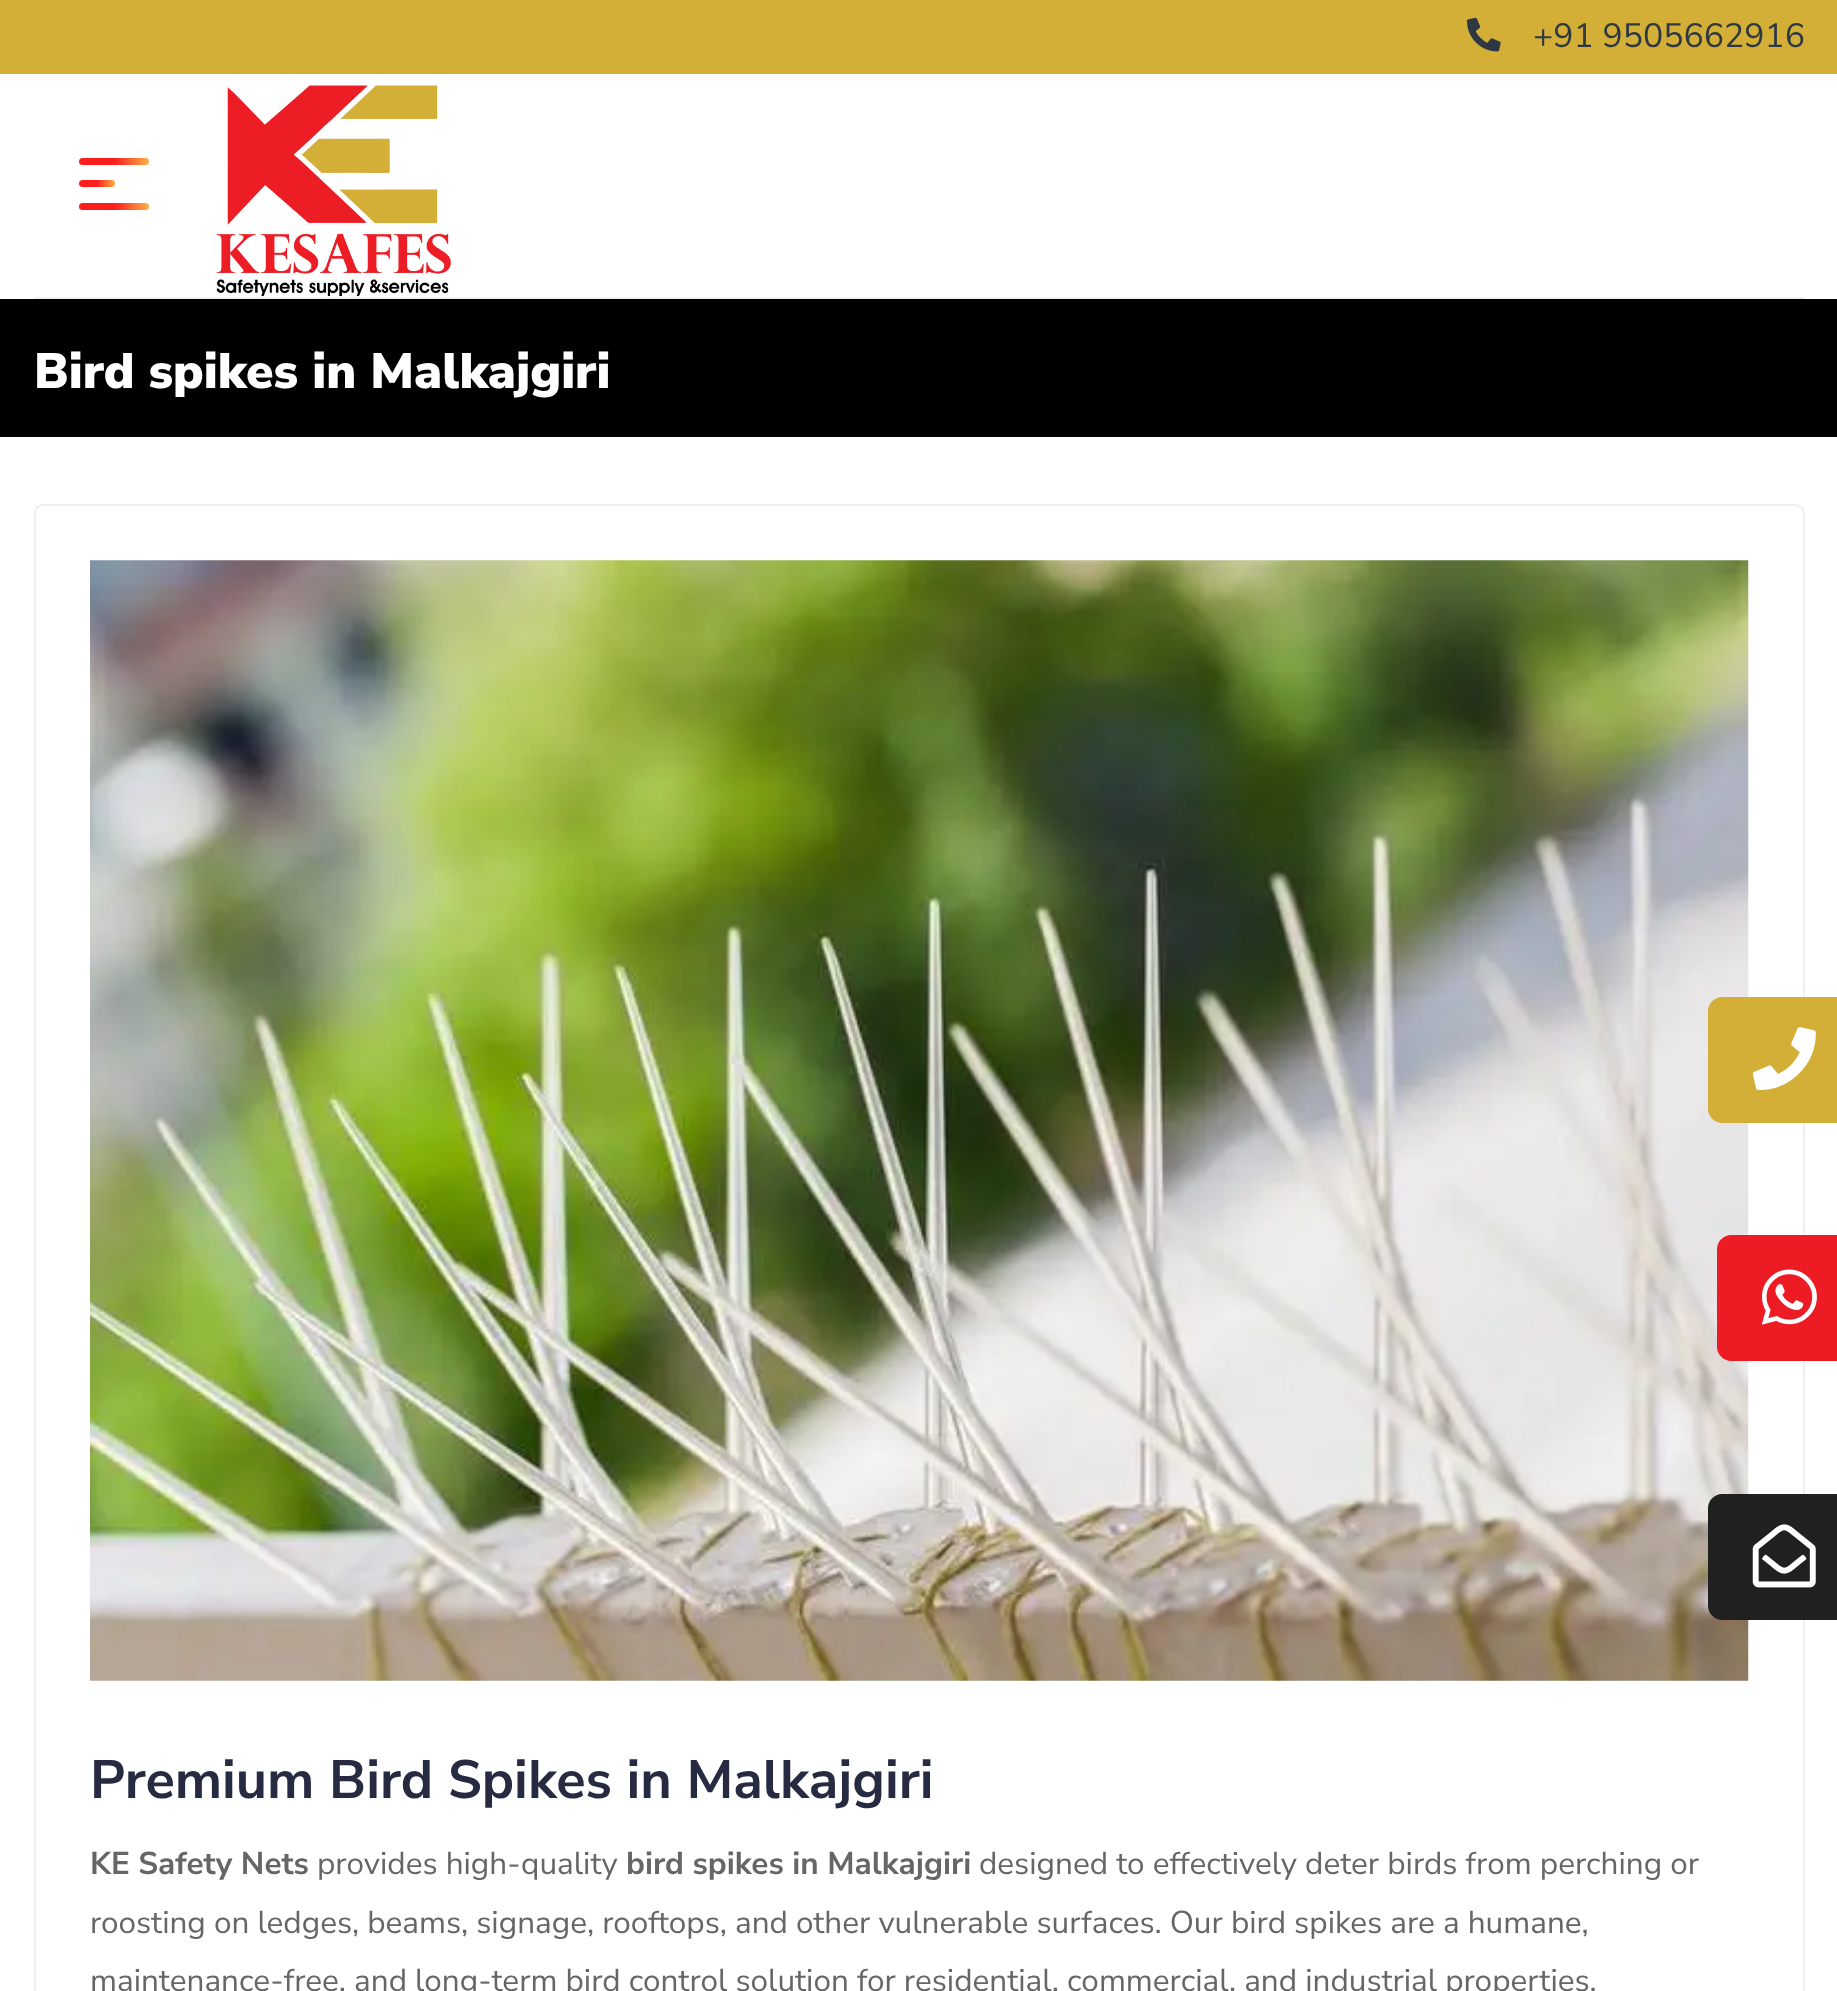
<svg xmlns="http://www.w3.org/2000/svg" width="1837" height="1991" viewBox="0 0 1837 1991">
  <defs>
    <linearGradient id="g1" gradientUnits="userSpaceOnUse" x1="79" y1="161" x2="149" y2="161"><stop offset="0.5" stop-color="#fd1d1d"/><stop offset="1" stop-color="#fcb045"/></linearGradient>
    <linearGradient id="g2" gradientUnits="userSpaceOnUse" x1="79" y1="183" x2="115" y2="183"><stop offset="0.5" stop-color="#fd1d1d"/><stop offset="1" stop-color="#fcb045"/></linearGradient>
    <linearGradient id="g3" gradientUnits="userSpaceOnUse" x1="79" y1="206" x2="149" y2="206"><stop offset="0.5" stop-color="#fd1d1d"/><stop offset="1" stop-color="#fcb045"/></linearGradient>
  </defs>
  <rect width="100%" height="100%" fill="#ffffff"/>
  <rect x="0" y="0" width="1837" height="74" fill="#d4af37"/>
  <image x="1467" y="17" width="34" height="35" href="img1.png"/>
  <text x="1533" y="47" font-family="Nunito Sans" font-size="33.75" fill="#2e3842">+91 9505662916</text>
  <rect x="34" y="297" width="1771" height="2" fill="#f0f0f0"/>
  <rect x="79" y="158" width="70" height="7" rx="3.5" fill="url(#g1)"/>
  <rect x="79" y="180" width="36" height="7" rx="3.5" fill="url(#g2)"/>
  <rect x="79" y="203" width="70" height="7" rx="3.5" fill="url(#g3)"/>
  <image x="216" y="85" width="235" height="212" href="img2.png"/>
  <rect x="0" y="299" width="1837" height="138" fill="#000000"/>
  <text x="34" y="388" font-family="Nunito Sans" font-size="49.5" font-weight="900" fill="#ffffff">Bird spikes in Malkajgiri</text>
  <rect x="35" y="505" width="1769" height="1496" rx="8" fill="none" stroke="#f0f0f0" stroke-width="2"/>
  <image x="90" y="560" width="1659" height="1121" href="img3.png"/>
  <text x="90" y="1798" font-family="Nunito Sans" font-size="54" font-weight="bold" fill="#272b41">Premium Bird Spikes in Malkajgiri</text>
  <text x="90" y="1874" font-family="Nunito Sans" font-size="31.5" font-weight="bold" fill="#666666">KE Safety Nets</text>
  <text x="317" y="1874" font-family="Nunito Sans" font-size="31.5" fill="#666666">provides high-quality</text>
  <text x="626" y="1874" font-family="Nunito Sans" font-size="31.5" font-weight="bold" fill="#666666">bird spikes in Malkajgiri</text>
  <text x="979" y="1874" font-family="Nunito Sans" font-size="31.5" fill="#666666">designed to effectively deter birds from perching or</text>
  <text x="90" y="1933" font-family="Nunito Sans" font-size="31.5" fill="#666666">roosting on ledges, beams, signage, rooftops, and other vulnerable surfaces. Our bird spikes are a humane,</text>
  <text x="90" y="1991" font-family="Nunito Sans" font-size="31.5" fill="#666666">maintenance-free, and long-term bird control solution for residential, commercial, and industrial properties.</text>
  <path d="M1722 997H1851V1123H1722C1714.5 1123 1708 1116.5 1708 1109V1011C1708 1003.5 1714.5 997 1722 997Z" fill="#d4af37"/>
  <image x="1752" y="1027" width="64" height="64" href="img4.png"/>
  <path d="M1731 1235H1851V1361H1731C1723.5 1361 1717 1354.5 1717 1347V1249C1717 1241.5 1723.5 1235 1731 1235Z" fill="#ed1c24"/>
  <image x="1761" y="1269" width="56" height="56" href="img5.png"/>
  <path d="M1722 1494H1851V1620H1722C1714.5 1620 1708 1613.5 1708 1606V1508C1708 1500.5 1714.5 1494 1722 1494Z" fill="#1f201f"/>
  <image x="1752" y="1524" width="64" height="64" href="img6.png"/>
</svg>
